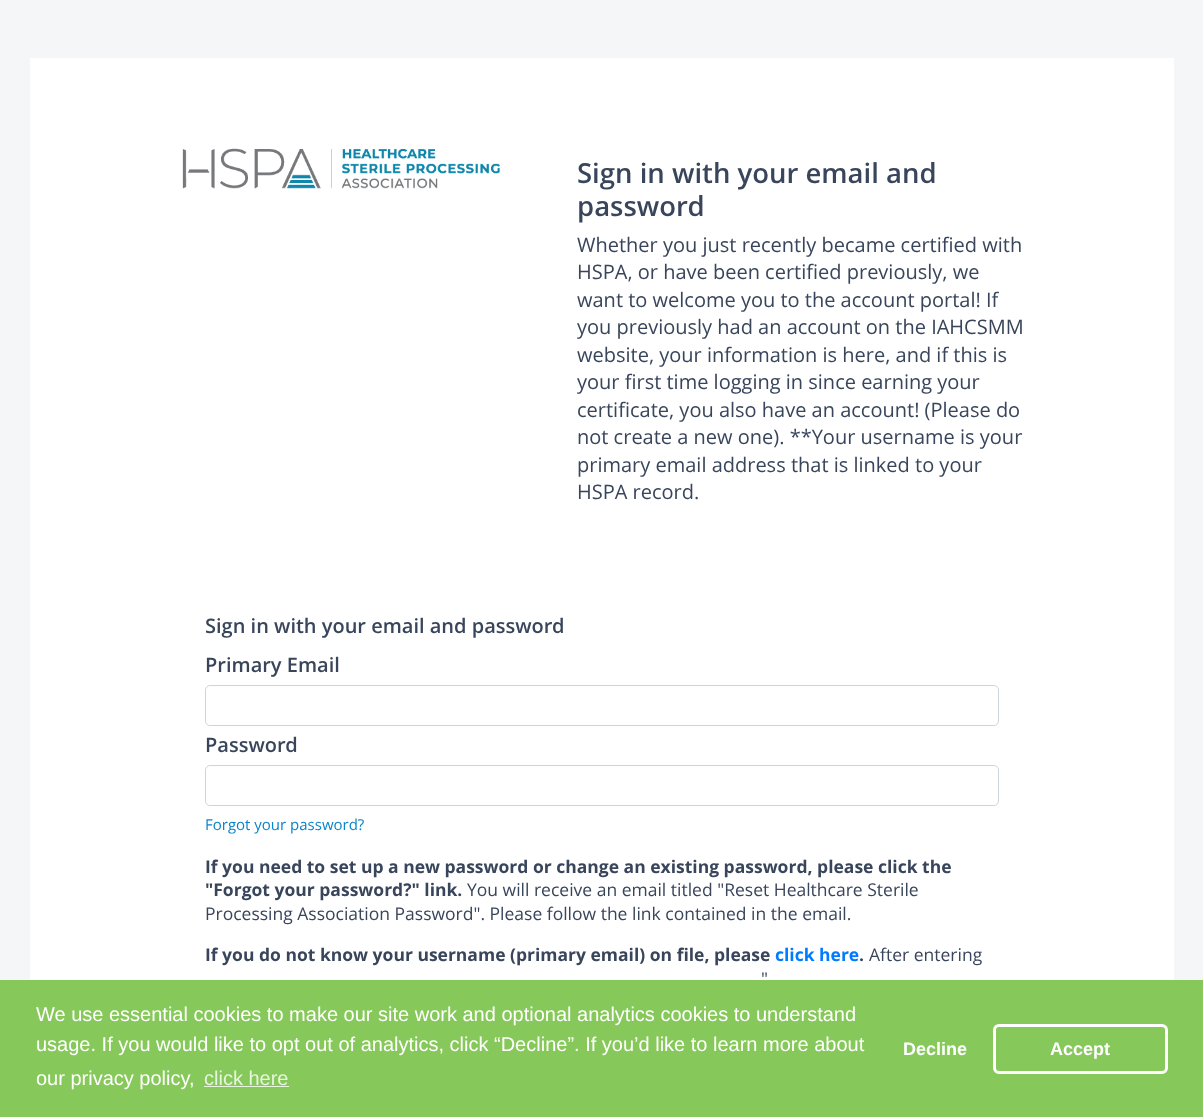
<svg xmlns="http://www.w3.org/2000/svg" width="1203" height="1117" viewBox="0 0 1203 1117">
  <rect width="100%" height="100%" fill="#f5f6f7"/>
  <rect x="30" y="58" width="1144" height="922" fill="#ffffff"/>
  <image x="182" y="148" width="318" height="41" href="img1.png"/>
  <text x="577" y="183" font-family="Open Sans" font-size="27.5" font-weight="600" fill="#38455b">Sign in with your email and</text>
  <text x="577" y="216" font-family="Open Sans" font-size="27.5" font-weight="600" fill="#38455b">password</text>
  <text x="577" y="252" font-family="Open Sans" font-size="20" fill="#38455b">Whether you just recently became certified with</text>
  <text x="577" y="279" font-family="Open Sans" font-size="20" fill="#38455b">HSPA, or have been certified previously, we</text>
  <text x="577" y="307" font-family="Open Sans" font-size="20" fill="#38455b">want to welcome you to the account portal! If</text>
  <text x="577" y="334" font-family="Open Sans" font-size="20" fill="#38455b">you previously had an account on the IAHCSMM</text>
  <text x="577" y="362" font-family="Open Sans" font-size="20" fill="#38455b">website, your information is here, and if this is</text>
  <text x="577" y="389" font-family="Open Sans" font-size="20" fill="#38455b">your first time logging in since earning your</text>
  <text x="577" y="417" font-family="Open Sans" font-size="20" fill="#38455b">certificate, you also have an account! (Please do</text>
  <text x="577" y="444" font-family="Open Sans" font-size="20" fill="#38455b">not create a new one). **Your username is your</text>
  <text x="577" y="472" font-family="Open Sans" font-size="20" fill="#38455b">primary email address that is linked to your</text>
  <text x="577" y="499" font-family="Open Sans" font-size="20" fill="#38455b">HSPA record.</text>
  <text x="205" y="633" font-family="Open Sans" font-size="20" font-weight="600" fill="#38455b">Sign in with your email and password</text>
  <text x="205" y="672" font-family="Open Sans" font-size="20" font-weight="600" fill="#38455b">Primary Email</text>
  <rect x="205.5" y="685.5" width="793" height="40" rx="4.5" fill="none" stroke="#ced4da"/>
  <text x="205" y="752" font-family="Open Sans" font-size="20" font-weight="600" fill="#38455b">Password</text>
  <rect x="205.5" y="765.5" width="793" height="40" rx="4.5" fill="none" stroke="#ced4da"/>
  <text x="205" y="830" font-family="Open Sans" font-size="15" fill="#0b84c9">Forgot your password?</text>
  <text x="205" y="873" font-family="Open Sans" font-size="17.5" font-weight="bold" fill="#38455b">If you need to set up a new password or change an existing password, please click the</text>
  <text x="205" y="896" font-family="Open Sans" font-size="17.5" font-weight="bold" fill="#38455b">"Forgot your password?" link.</text>
  <text x="467" y="896" font-family="Open Sans" font-size="17.5" fill="#38455b">You will receive an email titled "Reset Healthcare Sterile</text>
  <text x="205" y="920" font-family="Open Sans" font-size="17.5" fill="#38455b">Processing Association Password". Please follow the link contained in the email.</text>
  <text x="205" y="961" font-family="Open Sans" font-size="17.5" font-weight="bold" fill="#38455b">If you do not know your username (primary email) on file, please</text>
  <text x="775" y="961" font-family="Open Sans" font-size="17.5" font-weight="bold" fill="#007bff">click here</text>
  <text x="859" y="961" font-family="Open Sans" font-size="17.5" font-weight="bold" fill="#38455b">.</text>
  <text x="869" y="961" font-family="Open Sans" font-size="17.5" fill="#38455b">After entering</text>
  <text x="761" y="985" font-family="Open Sans" font-size="17.5" fill="#38455b">"</text>
  <rect x="0" y="980" width="1203" height="137" fill="#87c85b"/>
  <text x="36" y="1021" font-family="Liberation Sans" font-size="20" fill="#ffffff">We use essential cookies to make our site work and optional analytics cookies to understand</text>
  <text x="36" y="1051" font-family="Liberation Sans" font-size="20" fill="#ffffff">usage. If you would like to opt out of analytics, click “Decline”. If you’d like to learn more about</text>
  <text x="36" y="1085" font-family="Liberation Sans" font-size="20" fill="#ffffff">our privacy policy,</text>
  <text x="204" y="1085" font-family="Liberation Sans" font-size="20" fill="#e7f4de">click here</text>
  <rect x="204" y="1086" width="85" height="1" fill="#e7f4de"/>
  <text x="903" y="1055" font-family="Liberation Sans" font-size="18" font-weight="bold" fill="#ffffff">Decline</text>
  <rect x="994.5" y="1025.5" width="172" height="47" rx="4.5" fill="none" stroke="#ffffff" stroke-width="3"/>
  <text x="1050" y="1055" font-family="Liberation Sans" font-size="18" font-weight="bold" fill="#ffffff">Accept</text>
</svg>
